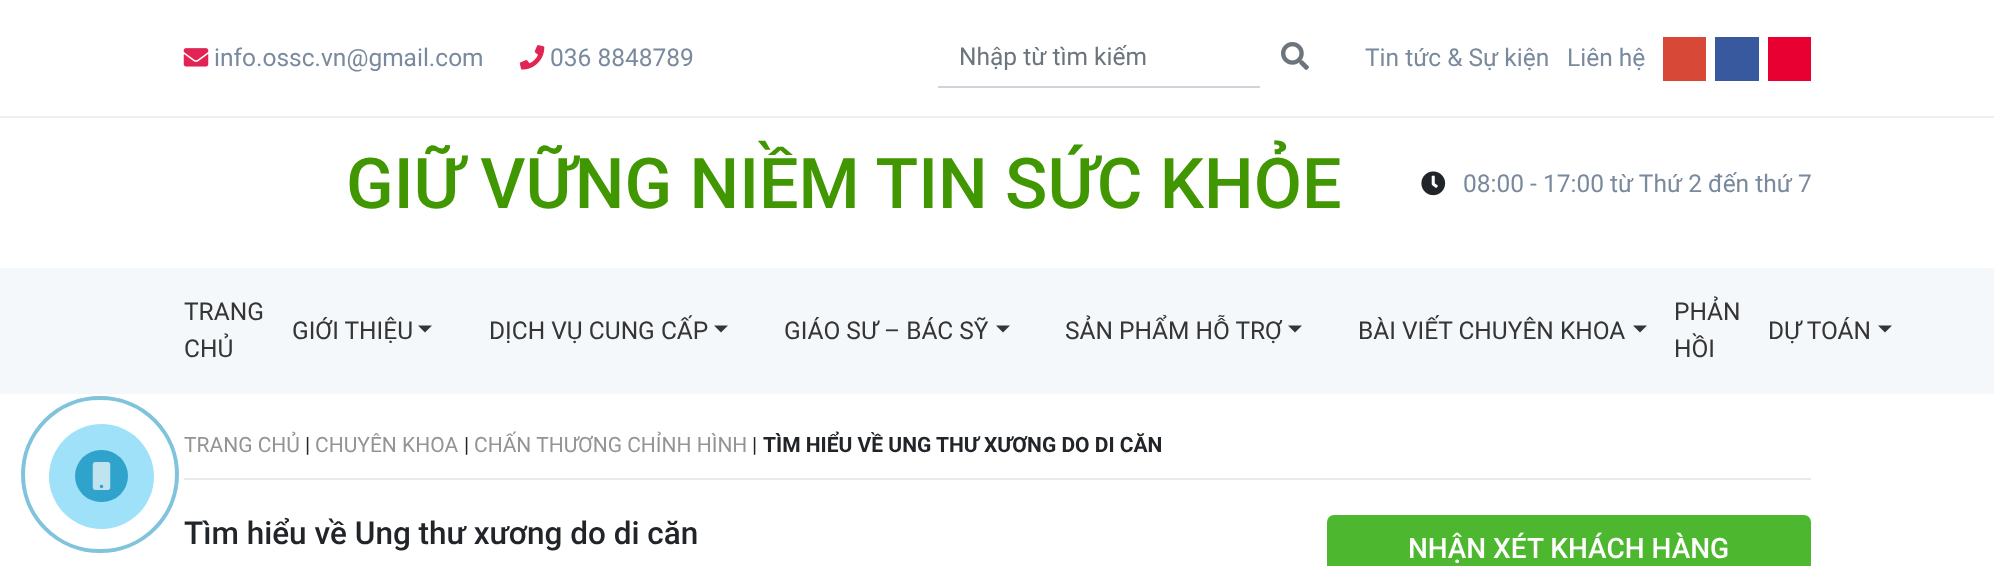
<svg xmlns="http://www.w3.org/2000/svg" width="1994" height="566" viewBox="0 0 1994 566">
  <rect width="100%" height="100%" fill="#ffffff"/>
  <rect x="0" y="116" width="1994" height="2" fill="#eeeeee"/>
  <image x="183" y="48" width="26" height="19" href="img1.png"/>
  <text x="214" y="66" font-family="Roboto" font-size="24.5" fill="#7a8a9e">info.ossc.vn@gmail.com</text>
  <image x="519" y="45" width="26" height="25" href="img2.png"/>
  <text x="550" y="66" font-family="Roboto" font-size="24.5" fill="#7a8a9e">036 8848789</text>
  <rect x="938" y="86" width="322" height="2" fill="#ced4da"/>
  <text x="959" y="65" font-family="Roboto" font-size="24.5" fill="#6c757d">Nhập từ tìm kiếm</text>
  <image x="1281" y="42" width="28" height="28" href="img3.png"/>
  <text x="1365" y="66" font-family="Roboto" font-size="24.5" fill="#7a8a9e">Tin tức &amp; Sự kiện</text>
  <text x="1567" y="66" font-family="Roboto" font-size="24.5" fill="#7a8a9e">Liên hệ</text>
  <rect x="1663" y="37" width="43" height="44" fill="#d74837"/>
  <rect x="1715" y="37" width="44" height="44" fill="#38599e"/>
  <rect x="1768" y="37" width="43" height="44" fill="#e80032"/>
  <text x="346" y="208" font-family="Roboto" font-size="70" font-weight="500" fill="#409702">GIỮ VỮNG NIỀM TIN SỨC KHỎE</text>
  <image x="1421" y="171" width="25" height="25" href="img4.png"/>
  <text x="1463" y="192" font-family="Roboto" font-size="24.5" fill="#7a8a9e">08:00 - 17:00 từ Thứ 2 đến thứ 7</text>
  <rect x="0" y="268" width="1994" height="126" fill="#f5f8fa"/>
  <text x="184" y="320" font-family="Roboto" font-size="24.5" fill="#353535">TRANG</text>
  <text x="184" y="357" font-family="Roboto" font-size="24.5" fill="#353535">CHỦ</text>
  <text x="292" y="339" font-family="Roboto" font-size="24.5" fill="#353535">GIỚI THIỆU</text>
  <path d="M418 325.5H432L425 332.5Z" fill="#353535"/>
  <text x="489" y="339" font-family="Roboto" font-size="24.5" fill="#353535">DỊCH VỤ CUNG CẤP</text>
  <path d="M714 325.5H728L721 332.5Z" fill="#353535"/>
  <text x="784" y="339" font-family="Roboto" font-size="24.5" fill="#353535">GIÁO SƯ – BÁC SỸ</text>
  <path d="M996 325.5H1010L1003 332.5Z" fill="#353535"/>
  <text x="1065" y="339" font-family="Roboto" font-size="24.5" fill="#353535">SẢN PHẨM HỖ TRỢ</text>
  <path d="M1288 325.5H1302L1295 332.5Z" fill="#353535"/>
  <text x="1358" y="339" font-family="Roboto" font-size="24.5" fill="#353535">BÀI VIẾT CHUYÊN KHOA</text>
  <path d="M1633 325.5H1647L1640 332.5Z" fill="#353535"/>
  <text x="1674" y="320" font-family="Roboto" font-size="24.5" fill="#353535">PHẢN</text>
  <text x="1674" y="357" font-family="Roboto" font-size="24.5" fill="#353535">HỒI</text>
  <text x="1768" y="339" font-family="Roboto" font-size="24.5" fill="#353535">DỰ TOÁN</text>
  <path d="M1878 325.5H1892L1885 332.5Z" fill="#353535"/>
  <rect x="23" y="398" width="154" height="153" rx="76.5" fill="none" stroke="#80c4dc" stroke-width="4"/>
  <circle cx="101.5" cy="476.5" r="52.5" fill="#a0e1fa"/>
  <rect x="75" y="450" width="53" height="52" rx="26" fill="#30a3cd"/>
  <image x="92" y="462" width="19" height="28" href="img5.png"/>
  <rect x="184" y="478" width="1627" height="2" fill="#e9e9e9"/>
  <text x="184" y="452" font-family="Roboto" font-size="21" fill="#949494">TRANG CHỦ</text>
  <text x="305" y="452" font-family="Roboto" font-size="21" fill="#212529">|</text>
  <text x="315" y="452" font-family="Roboto" font-size="21" fill="#949494">CHUYÊN KHOA</text>
  <text x="464" y="452" font-family="Roboto" font-size="21" fill="#212529">|</text>
  <text x="474" y="452" font-family="Roboto" font-size="21" fill="#949494">CHẤN THƯƠNG CHỈNH HÌNH</text>
  <text x="752" y="452" font-family="Roboto" font-size="21" fill="#212529">|</text>
  <text x="763" y="452" font-family="Roboto" font-size="21" font-weight="bold" fill="#212529">TÌM HIỂU VỀ UNG THƯ XƯƠNG DO DI CĂN</text>
  <text x="184" y="544" font-family="Roboto" font-size="31.5" font-weight="500" fill="#212529">Tìm hiểu về Ung thư xương do di căn</text>
  <rect x="1327" y="515" width="484" height="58" rx="7" fill="#4db82f"/>
  <text x="1408" y="558" font-family="Roboto" font-size="28" font-weight="500" fill="#ffffff">NHẬN XÉT KHÁCH HÀNG</text>
</svg>
